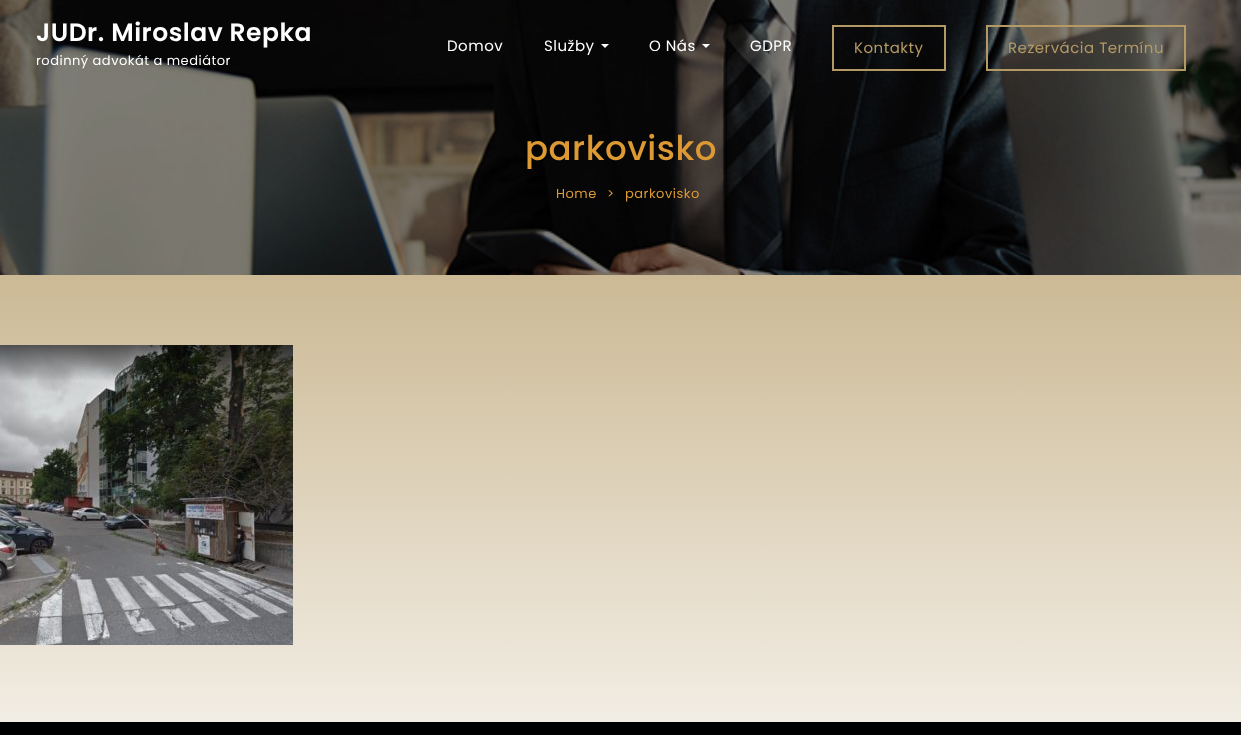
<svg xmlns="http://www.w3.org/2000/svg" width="1241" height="735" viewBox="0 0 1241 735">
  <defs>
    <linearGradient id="g1" gradientUnits="userSpaceOnUse" x1="621" y1="0" x2="621" y2="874"><stop offset="0" stop-color="#b49964"/><stop offset="1" stop-color="#ffffff"/></linearGradient>
  </defs>
  <rect width="100%" height="100%" fill="#ffffff"/>
  <rect x="0" y="275" width="1241" height="447" fill="url(#g1)"/>
  <image x="0" y="0" width="1241" height="275" href="img1.png"/>
  <text x="36" y="41" font-family="Poppins" font-size="25" font-weight="600" letter-spacing="0.5" fill="#ffffff">JUDr. Miroslav Repka</text>
  <text x="36" y="65" font-family="Poppins" font-size="13" letter-spacing="0.5" fill="#ffffff">rodinný advokát a mediátor</text>
  <text x="447" y="51" font-family="Poppins" font-size="15" letter-spacing="0.5" fill="#ffffff">Domov</text>
  <text x="544" y="51" font-family="Poppins" font-size="15" letter-spacing="0.5" fill="#ffffff">Služby</text>
  <path d="M601 44H609L605 48Z" fill="#ffffff"/>
  <text x="649" y="51" font-family="Poppins" font-size="15" letter-spacing="0.5" fill="#ffffff">O Nás</text>
  <path d="M702 44H710L706 48Z" fill="#ffffff"/>
  <text x="750" y="51" font-family="Poppins" font-size="15" letter-spacing="0.5" fill="#ffffff">GDPR</text>
  <rect x="833" y="26" width="112" height="44" fill="none" stroke="#b49964" stroke-width="2"/>
  <text x="854" y="53" font-family="Poppins" font-size="15" letter-spacing="0.5" fill="#b49964">Kontakty</text>
  <rect x="987" y="26" width="198" height="44" fill="none" stroke="#b49964" stroke-width="2"/>
  <text x="1008" y="53" font-family="Poppins" font-size="15" letter-spacing="0.5" fill="#b49964">Rezervácia Termínu</text>
  <text x="525" y="160" font-family="Poppins" font-size="34" font-weight="500" letter-spacing="0.5" fill="#dd9933">parkovisko</text>
  <text x="556" y="198" font-family="Poppins" font-size="13" letter-spacing="0.5" fill="#dd9933">Home</text>
  <text x="607" y="198" font-family="Poppins" font-size="13" letter-spacing="0.5" fill="#dd9933">&gt;</text>
  <text x="625" y="198" font-family="Poppins" font-size="13" letter-spacing="0.5" fill="#dd9933">parkovisko</text>
  <image x="0" y="345" width="293" height="300" href="img2.png"/>
  <rect x="0" y="722" width="1241" height="13" fill="#000000"/>
</svg>
